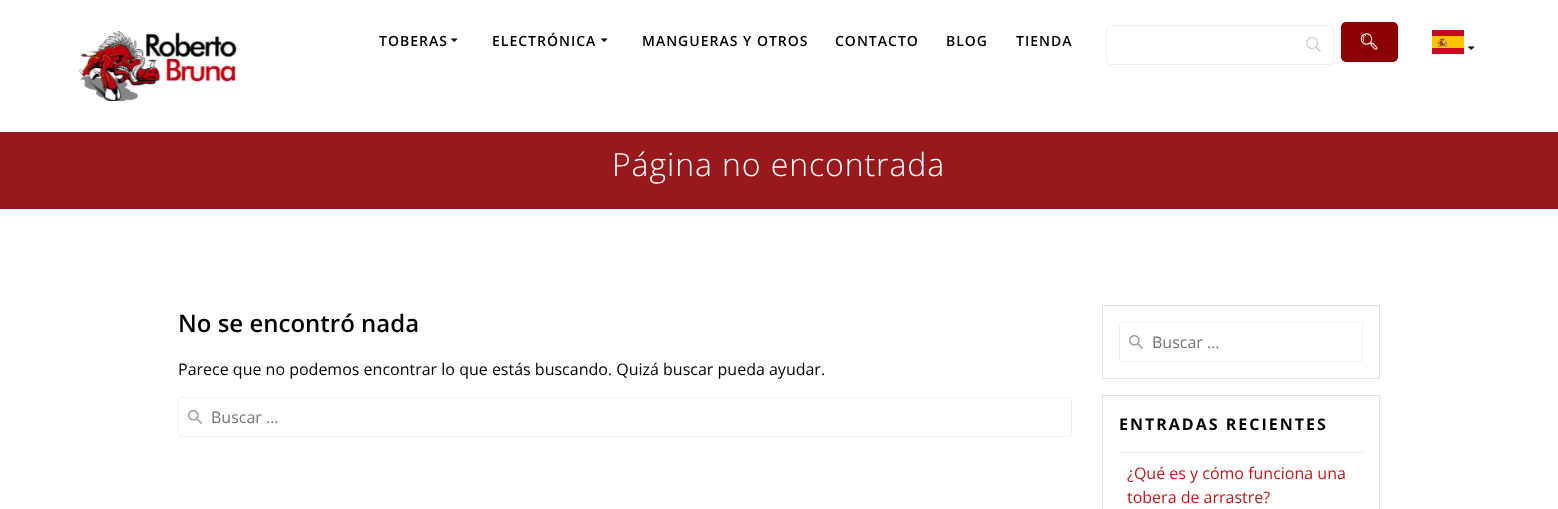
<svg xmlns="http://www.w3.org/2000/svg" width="1558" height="509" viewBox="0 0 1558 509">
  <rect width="100%" height="100%" fill="#97191c"/>
  <rect x="0" y="0" width="1558" height="132" fill="#ffffff"/>
  <image x="78" y="31" width="159" height="70" href="img1.png"/>
  <text x="379" y="46" font-family="Open Sans" font-size="14" font-weight="600" letter-spacing="1" fill="#000000">TOBERAS</text>
  <image x="451" y="38" width="7" height="4" href="img2.png"/>
  <text x="492" y="46" font-family="Open Sans" font-size="14" font-weight="600" letter-spacing="1" fill="#000000">ELECTRÓNICA</text>
  <image x="601" y="38" width="7" height="4" href="img2.png"/>
  <text x="642" y="46" font-family="Open Sans" font-size="14" font-weight="600" letter-spacing="1" fill="#000000">MANGUERAS Y OTROS</text>
  <text x="835" y="46" font-family="Open Sans" font-size="14" font-weight="600" letter-spacing="1" fill="#000000">CONTACTO</text>
  <text x="946" y="46" font-family="Open Sans" font-size="14" font-weight="600" letter-spacing="1" fill="#000000">BLOG</text>
  <text x="1016" y="46" font-family="Open Sans" font-size="14" font-weight="600" letter-spacing="1" fill="#000000">TIENDA</text>
  <image x="1306" y="37" width="15" height="15" href="img3.png"/>
  <rect x="1106.5" y="25.5" width="227" height="39" rx="4.5" fill="none" stroke="#ededed"/>
  <rect x="1341" y="22" width="57" height="40" rx="5" fill="#8b0000"/>
  <text x="1359" y="47" font-family="Noto Emoji" font-size="16" font-weight="bold" fill="#ffffff">🔍︎</text>
  <image x="1432" y="30" width="32" height="24" href="img4.png"/>
  <image x="1468" y="46" width="7" height="4" href="img2.png"/>
  <text x="612" y="176" font-family="Open Sans" font-size="32" font-weight="300" letter-spacing="0.9" fill="#ffffff">Página no encontrada</text>
  <rect x="0" y="209" width="1558" height="300" fill="#ffffff"/>
  <text x="178" y="332" font-family="Open Sans" font-size="24" font-weight="600" fill="#000000">No se encontró nada</text>
  <text x="178" y="375" font-family="Open Sans" font-size="16" fill="#000000">Parece que no podemos encontrar lo que estás buscando. Quizá buscar pueda ayudar.</text>
  <image x="188" y="410" width="14" height="14" href="img5.png"/>
  <rect x="178.5" y="397.5" width="893" height="39" rx="2.5" fill="none" stroke="#f1f1f1"/>
  <text x="211" y="423" font-family="Open Sans" font-size="16" fill="#757575">Buscar …</text>
  <rect x="1102.5" y="305.5" width="277" height="73" fill="none" stroke="#e0e1e1"/>
  <image x="1129" y="335" width="14" height="14" href="img5.png"/>
  <rect x="1119.5" y="322.5" width="243" height="39" rx="2.5" fill="none" stroke="#f1f1f1"/>
  <text x="1152" y="348" font-family="Open Sans" font-size="16" fill="#757575">Buscar …</text>
  <rect x="1102.5" y="395.5" width="277" height="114" fill="none" stroke="#e0e1e1"/>
  <text x="1119" y="430" font-family="Open Sans" font-size="16" font-weight="bold" letter-spacing="2" fill="#000000">ENTRADAS RECIENTES</text>
  <rect x="1119" y="452" width="244" height="1" fill="#e6e6e6"/>
  <text x="1127" y="479" font-family="Open Sans" font-size="16" fill="#c0181a">¿Qué es y cómo funciona una</text>
  <text x="1127" y="503" font-family="Open Sans" font-size="16" fill="#c0181a">tobera de arrastre?</text>
</svg>
